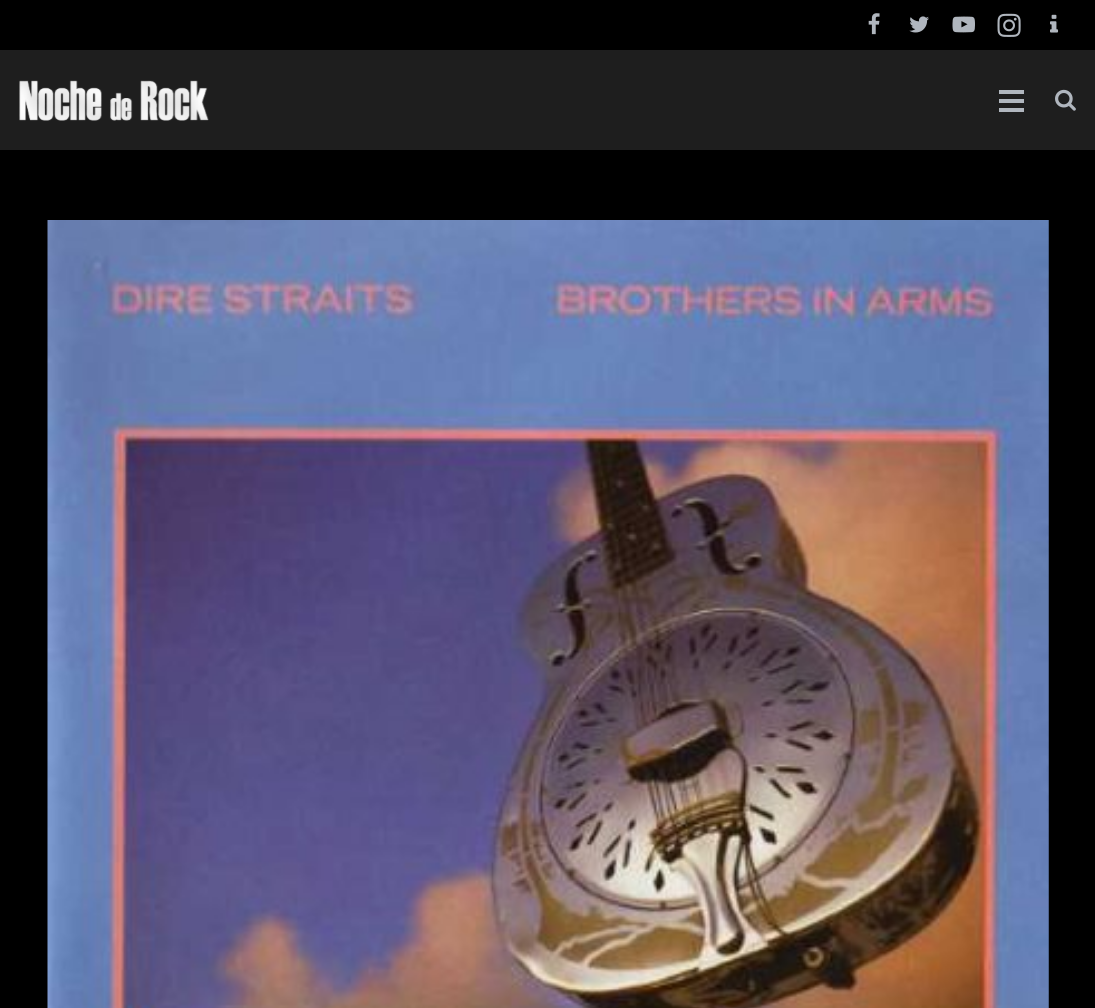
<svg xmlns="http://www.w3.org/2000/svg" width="1095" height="1008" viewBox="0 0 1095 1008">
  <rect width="100%" height="100%" fill="#000000"/>
  <image x="868" y="13" width="12" height="22" href="img1.png"/>
  <image x="909" y="16" width="20" height="17" href="img2.png"/>
  <image x="952" y="16" width="23" height="17" href="img3.png"/>
  <image x="997" y="13" width="24" height="24" href="img4.png"/>
  <image x="1050" y="14" width="9" height="19" href="img5.png"/>
  <rect x="0" y="50" width="1095" height="100" fill="#1e1e1e"/>
  <image x="19" y="80" width="190" height="41" href="img6.png"/>
  <rect x="999" y="99" width="25" height="4" fill="#b0b6be"/>
  <rect x="999" y="90" width="25" height="4" fill="#b0b6be"/>
  <rect x="999" y="108" width="25" height="4" fill="#b0b6be"/>
  <image x="1055" y="89" width="21" height="22" href="img7.png"/>
  <image x="47" y="220" width="1002" height="788" href="img8.png"/>
</svg>
